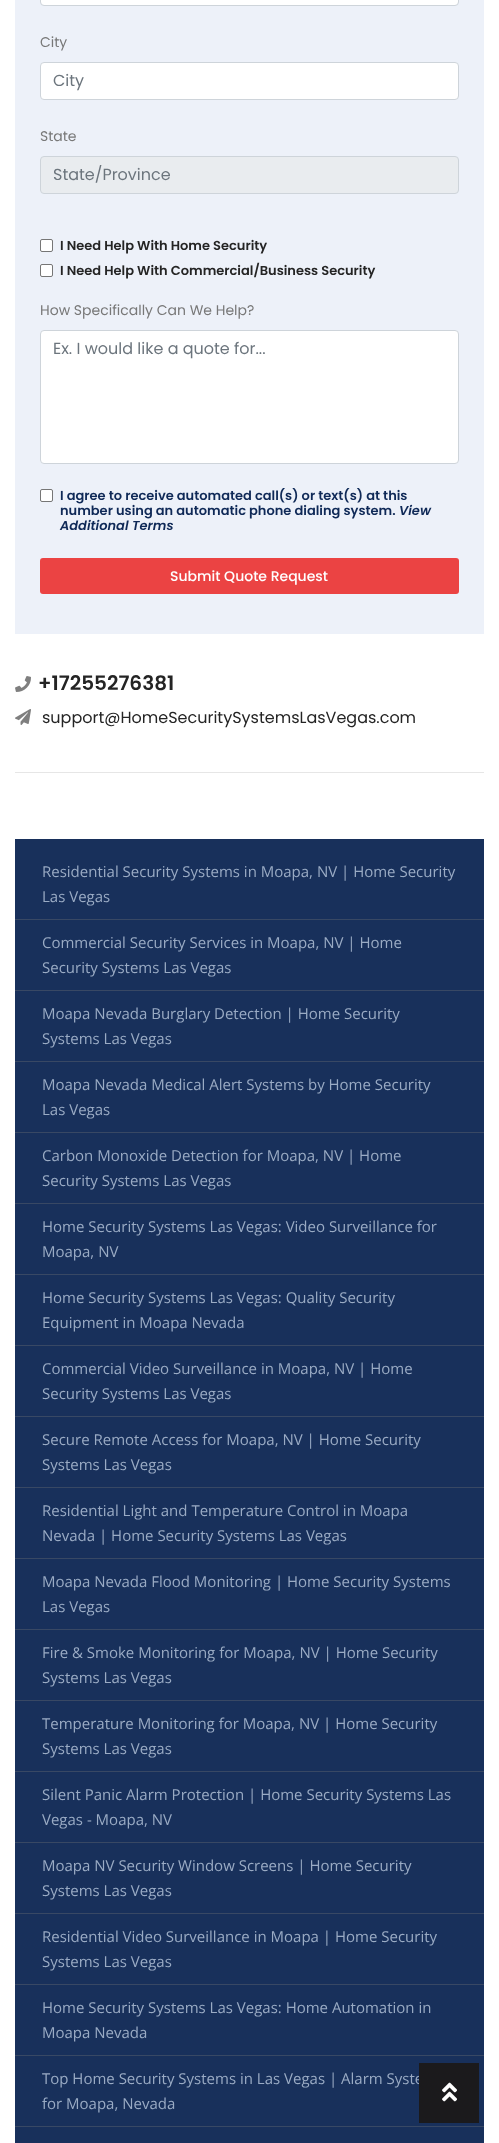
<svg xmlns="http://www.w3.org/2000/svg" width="499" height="2143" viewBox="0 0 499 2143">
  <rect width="100%" height="100%" fill="#ffffff"/>
  <rect x="15" y="0" width="469" height="634" fill="#edf1f9"/>
  <rect x="41" y="-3" width="417" height="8" rx="3" fill="#ffffff"/>
  <rect x="40.5" y="-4.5" width="418" height="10" rx="3.5" fill="none" stroke="#ced4da"/>
  <text x="40" y="47" font-family="Poppins" font-size="14" fill="#787878">City</text>
  <rect x="40.5" y="62.5" width="418" height="37" rx="3.5" fill="#ffffff" stroke="#ced4da"/>
  <text x="53" y="86" font-family="Poppins" font-size="16" fill="#6c757d">City</text>
  <text x="40" y="141" font-family="Poppins" font-size="14" fill="#787878">State</text>
  <rect x="40.5" y="156.5" width="418" height="37" rx="3.5" fill="#e9ecef" stroke="#ced4da"/>
  <text x="53" y="180" font-family="Poppins" font-size="16" fill="#6c757d">State/Province</text>
  <rect x="40.5" y="239.5" width="12" height="12" rx="1.5" fill="#ffffff" stroke="#767676"/>
  <text x="60" y="250" font-family="Poppins" font-size="13" font-weight="600" fill="#242424">I Need Help With Home Security</text>
  <rect x="40.5" y="264.5" width="12" height="12" rx="1.5" fill="#ffffff" stroke="#767676"/>
  <text x="60" y="275" font-family="Poppins" font-size="13" font-weight="600" fill="#242424">I Need Help With Commercial/Business Security</text>
  <text x="40" y="315" font-family="Poppins" font-size="14" fill="#787878">How Specifically Can We Help?</text>
  <rect x="40.5" y="330.5" width="418" height="133" rx="3.5" fill="#ffffff" stroke="#ced4da"/>
  <text x="53" y="354" font-family="Poppins" font-size="16" fill="#6c757d">Ex. I would like a quote for...</text>
  <rect x="40.5" y="489.5" width="12" height="12" rx="1.5" fill="#ffffff" stroke="#767676"/>
  <text x="60" y="500" font-family="Poppins" font-size="13" font-weight="600" fill="#0f2957">I agree to receive automated call(s) or text(s) at this</text>
  <text x="60" y="515" font-family="Poppins" font-size="13" font-weight="600" fill="#0f2957">number using an automatic phone dialing system.</text>
  <text x="399" y="515" font-family="Poppins" font-size="13" font-weight="600" font-style="italic" fill="#0f2957">View</text>
  <text x="60" y="530" font-family="Poppins" font-size="13" font-weight="600" font-style="italic" fill="#0f2957">Additional Terms</text>
  <rect x="40" y="558" width="419" height="36" rx="3" fill="#eb4343"/>
  <text x="170" y="581" font-family="Poppins" font-size="14" font-weight="500" fill="#ffffff">Submit Quote Request</text>
  <image x="15" y="676" width="16" height="16" href="img1.png"/>
  <text x="38" y="690" font-family="Poppins" font-size="20" font-weight="600" fill="#242424">+17255276381</text>
  <image x="15" y="709" width="16" height="16" href="img2.png"/>
  <text x="42" y="723" font-family="Poppins" font-size="16" fill="#242424">support@HomeSecuritySystemsLasVegas.com</text>
  <rect x="15" y="772" width="469" height="1" fill="#e6e6e6"/>
  <rect x="15" y="839" width="469" height="1304" fill="#18305b"/>
  <rect x="15" y="919" width="469" height="1" fill="#384864"/>
  <text x="42" y="877" font-family="Open Sans" font-size="15" fill="#9aabc4">Residential Security Systems in Moapa, NV | Home Security</text>
  <text x="42" y="902" font-family="Open Sans" font-size="15" fill="#9aabc4">Las Vegas</text>
  <rect x="15" y="990" width="469" height="1" fill="#384864"/>
  <text x="42" y="948" font-family="Open Sans" font-size="15" fill="#9aabc4">Commercial Security Services in Moapa, NV | Home</text>
  <text x="42" y="973" font-family="Open Sans" font-size="15" fill="#9aabc4">Security Systems Las Vegas</text>
  <rect x="15" y="1061" width="469" height="1" fill="#384864"/>
  <text x="42" y="1019" font-family="Open Sans" font-size="15" fill="#9aabc4">Moapa Nevada Burglary Detection | Home Security</text>
  <text x="42" y="1044" font-family="Open Sans" font-size="15" fill="#9aabc4">Systems Las Vegas</text>
  <rect x="15" y="1132" width="469" height="1" fill="#384864"/>
  <text x="42" y="1090" font-family="Open Sans" font-size="15" fill="#9aabc4">Moapa Nevada Medical Alert Systems by Home Security</text>
  <text x="42" y="1115" font-family="Open Sans" font-size="15" fill="#9aabc4">Las Vegas</text>
  <rect x="15" y="1203" width="469" height="1" fill="#384864"/>
  <text x="42" y="1161" font-family="Open Sans" font-size="15" fill="#9aabc4">Carbon Monoxide Detection for Moapa, NV | Home</text>
  <text x="42" y="1186" font-family="Open Sans" font-size="15" fill="#9aabc4">Security Systems Las Vegas</text>
  <rect x="15" y="1274" width="469" height="1" fill="#384864"/>
  <text x="42" y="1232" font-family="Open Sans" font-size="15" fill="#9aabc4">Home Security Systems Las Vegas: Video Surveillance for</text>
  <text x="42" y="1257" font-family="Open Sans" font-size="15" fill="#9aabc4">Moapa, NV</text>
  <rect x="15" y="1345" width="469" height="1" fill="#384864"/>
  <text x="42" y="1303" font-family="Open Sans" font-size="15" fill="#9aabc4">Home Security Systems Las Vegas: Quality Security</text>
  <text x="42" y="1328" font-family="Open Sans" font-size="15" fill="#9aabc4">Equipment in Moapa Nevada</text>
  <rect x="15" y="1416" width="469" height="1" fill="#384864"/>
  <text x="42" y="1374" font-family="Open Sans" font-size="15" fill="#9aabc4">Commercial Video Surveillance in Moapa, NV | Home</text>
  <text x="42" y="1399" font-family="Open Sans" font-size="15" fill="#9aabc4">Security Systems Las Vegas</text>
  <rect x="15" y="1487" width="469" height="1" fill="#384864"/>
  <text x="42" y="1445" font-family="Open Sans" font-size="15" fill="#9aabc4">Secure Remote Access for Moapa, NV | Home Security</text>
  <text x="42" y="1470" font-family="Open Sans" font-size="15" fill="#9aabc4">Systems Las Vegas</text>
  <rect x="15" y="1558" width="469" height="1" fill="#384864"/>
  <text x="42" y="1516" font-family="Open Sans" font-size="15" fill="#9aabc4">Residential Light and Temperature Control in Moapa</text>
  <text x="42" y="1541" font-family="Open Sans" font-size="15" fill="#9aabc4">Nevada | Home Security Systems Las Vegas</text>
  <rect x="15" y="1629" width="469" height="1" fill="#384864"/>
  <text x="42" y="1587" font-family="Open Sans" font-size="15" fill="#9aabc4">Moapa Nevada Flood Monitoring | Home Security Systems</text>
  <text x="42" y="1612" font-family="Open Sans" font-size="15" fill="#9aabc4">Las Vegas</text>
  <rect x="15" y="1700" width="469" height="1" fill="#384864"/>
  <text x="42" y="1658" font-family="Open Sans" font-size="15" fill="#9aabc4">Fire &amp; Smoke Monitoring for Moapa, NV | Home Security</text>
  <text x="42" y="1683" font-family="Open Sans" font-size="15" fill="#9aabc4">Systems Las Vegas</text>
  <rect x="15" y="1771" width="469" height="1" fill="#384864"/>
  <text x="42" y="1729" font-family="Open Sans" font-size="15" fill="#9aabc4">Temperature Monitoring for Moapa, NV | Home Security</text>
  <text x="42" y="1754" font-family="Open Sans" font-size="15" fill="#9aabc4">Systems Las Vegas</text>
  <rect x="15" y="1842" width="469" height="1" fill="#384864"/>
  <text x="42" y="1800" font-family="Open Sans" font-size="15" fill="#9aabc4">Silent Panic Alarm Protection | Home Security Systems Las</text>
  <text x="42" y="1825" font-family="Open Sans" font-size="15" fill="#9aabc4">Vegas - Moapa, NV</text>
  <rect x="15" y="1913" width="469" height="1" fill="#384864"/>
  <text x="42" y="1871" font-family="Open Sans" font-size="15" fill="#9aabc4">Moapa NV Security Window Screens | Home Security</text>
  <text x="42" y="1896" font-family="Open Sans" font-size="15" fill="#9aabc4">Systems Las Vegas</text>
  <rect x="15" y="1984" width="469" height="1" fill="#384864"/>
  <text x="42" y="1942" font-family="Open Sans" font-size="15" fill="#9aabc4">Residential Video Surveillance in Moapa | Home Security</text>
  <text x="42" y="1967" font-family="Open Sans" font-size="15" fill="#9aabc4">Systems Las Vegas</text>
  <rect x="15" y="2055" width="469" height="1" fill="#384864"/>
  <text x="42" y="2013" font-family="Open Sans" font-size="15" fill="#9aabc4">Home Security Systems Las Vegas: Home Automation in</text>
  <text x="42" y="2038" font-family="Open Sans" font-size="15" fill="#9aabc4">Moapa Nevada</text>
  <rect x="15" y="2126" width="469" height="1" fill="#384864"/>
  <text x="42" y="2084" font-family="Open Sans" font-size="15" fill="#9aabc4">Top Home Security Systems in Las Vegas | Alarm Syste</text>
  <text x="42" y="2109" font-family="Open Sans" font-size="15" fill="#9aabc4">for Moapa, Nevada</text>
  <rect x="419" y="2063" width="60" height="60" fill="#1b1a1c"/>
  <image x="442" y="2082" width="15" height="20" href="img3.png"/>
</svg>
